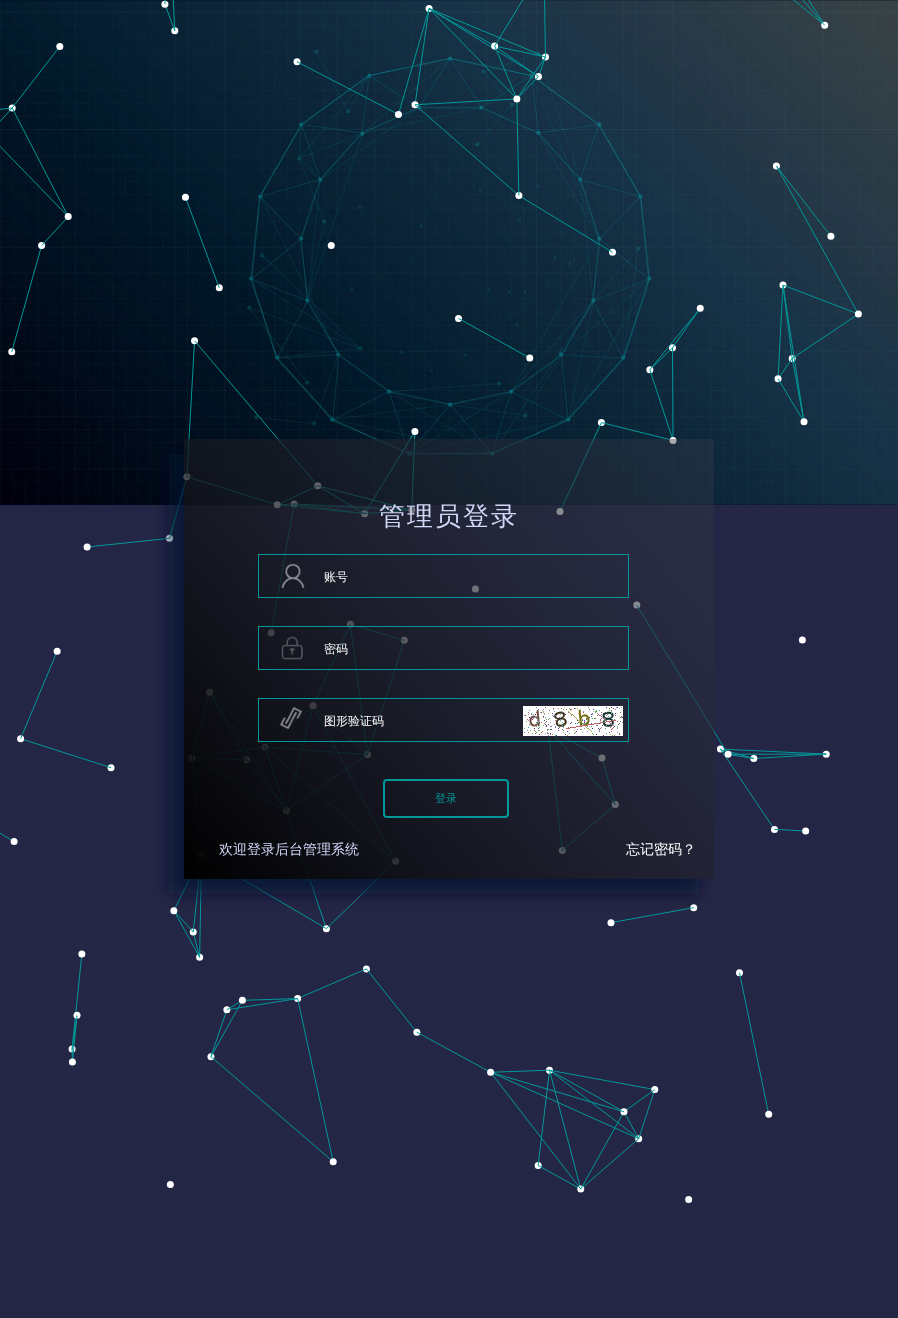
<svg xmlns="http://www.w3.org/2000/svg" width="898" height="1318" viewBox="0 0 898 1318">
  <defs>
    <clipPath id="clip1"><path d="M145 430H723V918H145ZM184 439H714V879H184Z" clip-rule="evenodd"/></clipPath>
    <filter id="blur1" x="-50%" y="-200%" width="200%" height="500%"><feGaussianBlur stdDeviation="7.5"/></filter>
    <linearGradient id="g1" gradientUnits="userSpaceOnUse" x1="713" y1="438" x2="185" y2="880"><stop offset="0" stop-color="#35394a" stop-opacity="0.4"/><stop offset="1" stop-color="#000000"/></linearGradient>
  </defs>
  <rect width="100%" height="100%" fill="#242645"/>
  <image x="0" y="0" width="898" height="505" href="img1.png"/>
  <image x="0" y="0" width="862" height="1203" href="img2.png"/>
  <g clip-path="url(#clip1)">
    <rect x="169" y="454" width="530" height="440" fill="#06112f" fill-opacity="0.7" filter="url(#blur1)"/>
  </g>
  <rect x="184" y="439" width="530" height="440" fill="url(#g1)"/>
  <text x="379" y="525" font-family="WenQuanYi Zen Hei" font-size="26" font-weight="500" letter-spacing="2" fill="#d3d7f7">管理员登录</text>
  <rect x="258.5" y="554.5" width="370" height="43" fill="none" stroke="#009999"/>
  <image x="281" y="563" width="24" height="26" href="img3.png"/>
  <text x="324" y="581" font-family="WenQuanYi Zen Hei" font-size="12" font-weight="500" fill="#ffffff">账号</text>
  <rect x="258.5" y="626.5" width="370" height="43" fill="none" stroke="#009999"/>
  <image x="281" y="636" width="22" height="24" href="img4.png"/>
  <text x="324" y="653" font-family="WenQuanYi Zen Hei" font-size="12" font-weight="500" fill="#ffffff">密码</text>
  <rect x="258.5" y="698.5" width="370" height="43" fill="none" stroke="#009999"/>
  <image x="280" y="707" width="22" height="22" href="img5.png"/>
  <text x="324" y="725" font-family="WenQuanYi Zen Hei" font-size="12" font-weight="500" fill="#ffffff">图形验证码</text>
  <image x="523" y="706" width="100" height="30" href="img6.png"/>
  <rect x="384" y="780" width="124" height="37" rx="3" fill="none" stroke="#009999" stroke-width="2"/>
  <text x="435" y="802" font-family="WenQuanYi Zen Hei" font-size="11" font-weight="500" fill="#009999">登录</text>
  <text x="219" y="854" font-family="WenQuanYi Zen Hei" font-size="14" font-weight="500" fill="#d3d7f7">欢迎登录后台管理系统</text>
  <text x="626" y="854" font-family="WenQuanYi Zen Hei" font-size="14" font-weight="500" fill="#ffffff">忘记密码？</text>
</svg>
